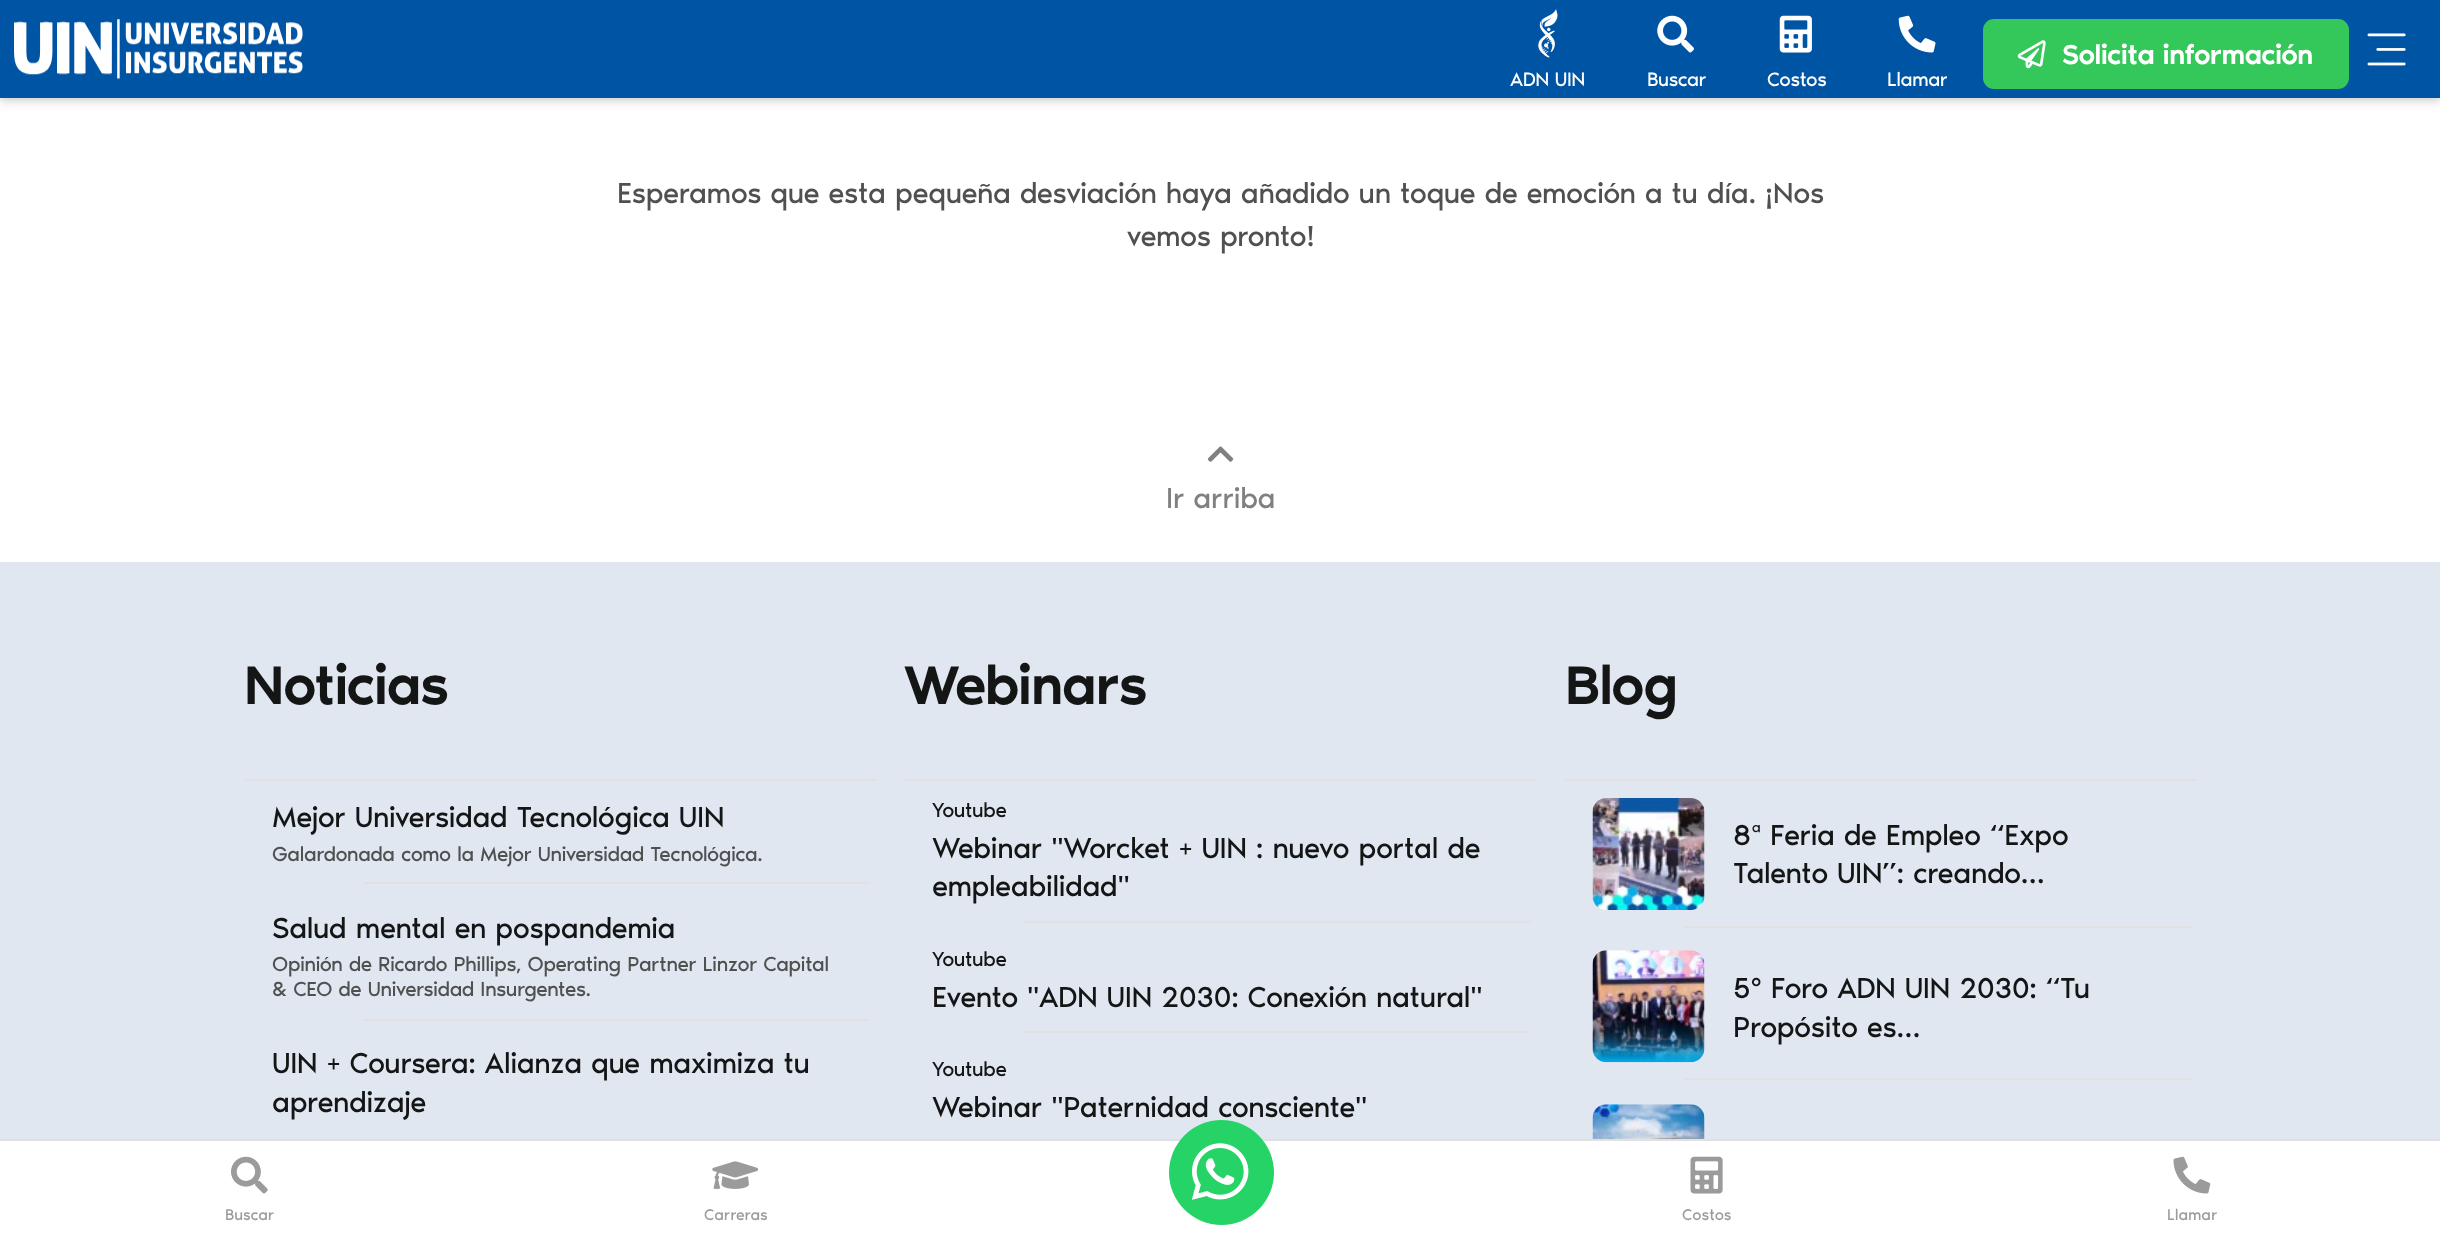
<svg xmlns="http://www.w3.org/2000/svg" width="2440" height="1239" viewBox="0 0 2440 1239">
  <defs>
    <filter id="blur1" x="-50%" y="-200%" width="200%" height="500%"><feGaussianBlur stdDeviation="2.5"/></filter>
    <filter id="blur2" x="-50%" y="-200%" width="200%" height="500%"><feGaussianBlur stdDeviation="5"/></filter>
  </defs>
  <rect width="100%" height="100%" fill="#ffffff"/>
  <rect x="0" y="2" width="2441" height="98" fill="#000000" fill-opacity="0.08" filter="url(#blur1)"/>
  <rect x="0" y="5" width="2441" height="98" fill="#000000" fill-opacity="0.1" filter="url(#blur2)"/>
  <rect x="0" y="0" width="2440" height="98" fill="#0054a4"/>
  <image x="14" y="19" width="289" height="61" href="img1.png"/>
  <rect x="1985" y="21" width="362" height="66" rx="9" fill="#34c759" stroke="#34c759" stroke-width="4"/>
  <image x="2017" y="40" width="29" height="29" href="img2.png"/>
  <text x="2062" y="64" font-family="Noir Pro" font-size="28" font-weight="500" letter-spacing="-0.42" fill="#ffffff">Solicita información</text>
  <image x="1538" y="9" width="20" height="49" href="img3.png"/>
  <text x="1510" y="86" font-family="Noir Pro" font-size="20" letter-spacing="-0.42" fill="#ffffff">ADN UIN</text>
  <image x="1657" y="15" width="37" height="38" href="img4.png"/>
  <text x="1647" y="86" font-family="Noir Pro" font-size="20" letter-spacing="-0.42" fill="#ffffff">Buscar</text>
  <image x="1779" y="15" width="33" height="38" href="img5.png"/>
  <text x="1767" y="86" font-family="Noir Pro" font-size="20" letter-spacing="-0.42" fill="#ffffff">Costos</text>
  <image x="1898" y="15" width="38" height="38" href="img6.png"/>
  <text x="1887" y="86" font-family="Noir Pro" font-size="20" letter-spacing="-0.42" fill="#ffffff">Llamar</text>
  <image x="2367" y="33" width="39" height="33" href="img7.png"/>
  <text x="617" y="203" font-family="Noir Pro" font-size="29.75" letter-spacing="-0.42" fill="#4f5050">Esperamos que esta pequeña desviación haya añadido un toque de emoción a tu día. ¡Nos</text>
  <text x="1127" y="246" font-family="Noir Pro" font-size="29.75" letter-spacing="-0.42" fill="#4f5050">vemos pronto!</text>
  <image x="1207" y="446" width="27" height="16" href="img8.png"/>
  <text x="1166" y="508" font-family="Noir Pro" font-size="29.75" letter-spacing="-0.42" fill="#808080">Ir arriba</text>
  <rect x="0" y="562" width="2440" height="577" fill="#e1e7f1"/>
  <text x="244" y="704" font-family="Noir Pro" font-size="56" font-weight="500" letter-spacing="-1" fill="#141515">Noticias</text>
  <rect x="245" y="779" width="632" height="2" fill="#e1e1e1"/>
  <text x="272" y="827" font-family="Noir Pro" font-size="29.75" letter-spacing="-0.42" fill="#141515">Mejor Universidad Tecnológica UIN</text>
  <text x="272" y="861" font-family="Noir Pro" font-size="21" letter-spacing="-0.42" fill="#4f5050">Galardonada como la Mejor Universidad Tecnológica.</text>
  <rect x="364" y="882" width="506" height="2" fill="#e1e1e1"/>
  <text x="272" y="938" font-family="Noir Pro" font-size="29.75" letter-spacing="-0.42" fill="#141515">Salud mental en pospandemia</text>
  <text x="272" y="971" font-family="Noir Pro" font-size="21" letter-spacing="-0.42" fill="#4f5050">Opinión de Ricardo Phillips, Operating Partner Linzor Capital</text>
  <text x="272" y="996" font-family="Noir Pro" font-size="21" letter-spacing="-0.42" fill="#4f5050">&amp; CEO de Universidad Insurgentes.</text>
  <rect x="364" y="1019" width="506" height="2" fill="#e1e1e1"/>
  <text x="272" y="1073" font-family="Noir Pro" font-size="29.75" letter-spacing="-0.42" fill="#141515">UIN + Coursera: Alianza que maximiza tu</text>
  <text x="272" y="1112" font-family="Noir Pro" font-size="29.75" letter-spacing="-0.42" fill="#141515">aprendizaje</text>
  <text x="904" y="704" font-family="Noir Pro" font-size="56" font-weight="500" letter-spacing="-1" fill="#141515">Webinars</text>
  <rect x="905" y="779" width="632" height="2" fill="#e1e1e1"/>
  <text x="932" y="817" font-family="Noir Pro" font-size="21" letter-spacing="-0.42" fill="#141515">Youtube</text>
  <text x="932" y="858" font-family="Noir Pro" font-size="29.75" letter-spacing="-0.42" fill="#141515">Webinar "Worcket + UIN : nuevo portal de</text>
  <text x="932" y="896" font-family="Noir Pro" font-size="29.75" letter-spacing="-0.42" fill="#141515">empleabilidad"</text>
  <rect x="1024" y="921" width="507" height="2" fill="#e1e1e1"/>
  <text x="932" y="966" font-family="Noir Pro" font-size="21" letter-spacing="-0.42" fill="#141515">Youtube</text>
  <text x="932" y="1007" font-family="Noir Pro" font-size="29.75" letter-spacing="-0.42" fill="#141515">Evento "ADN UIN 2030: Conexión natural"</text>
  <rect x="1024" y="1031" width="507" height="2" fill="#e1e1e1"/>
  <text x="932" y="1076" font-family="Noir Pro" font-size="21" letter-spacing="-0.42" fill="#141515">Youtube</text>
  <text x="932" y="1117" font-family="Noir Pro" font-size="29.75" letter-spacing="-0.42" fill="#141515">Webinar "Paternidad consciente"</text>
  <text x="1565" y="704" font-family="Noir Pro" font-size="56" font-weight="500" letter-spacing="-1" fill="#141515">Blog</text>
  <rect x="1565" y="779" width="631" height="2" fill="#e1e1e1"/>
  <image x="1592" y="798" width="113" height="112" href="img9.png"/>
  <text x="1733" y="845" font-family="Noir Pro" font-size="29.75" letter-spacing="-0.42" fill="#141515">8ª Feria de Empleo “Expo</text>
  <text x="1733" y="883" font-family="Noir Pro" font-size="29.75" letter-spacing="-0.42" fill="#141515">Talento UIN”: creando…</text>
  <rect x="1684" y="926" width="507" height="2" fill="#e1e1e1"/>
  <image x="1592" y="950" width="113" height="113" href="img10.png"/>
  <text x="1733" y="998" font-family="Noir Pro" font-size="29.75" letter-spacing="-0.42" fill="#141515">5° Foro ADN UIN 2030: “Tu</text>
  <text x="1733" y="1037" font-family="Noir Pro" font-size="29.75" letter-spacing="-0.42" fill="#141515">Propósito es…</text>
  <rect x="1684" y="1078" width="507" height="2" fill="#e1e1e1"/>
  <image x="1592" y="1104" width="113" height="35" href="img11.png"/>
  <rect x="0" y="1139" width="2440" height="2" fill="#e1e1e1"/>
  <image x="231" y="1156" width="37" height="38" href="img12.png"/>
  <text x="225" y="1220" font-family="Noir Pro" font-size="16" fill="#9b9b9b">Buscar</text>
  <image x="712" y="1161" width="47" height="28" href="img13.png"/>
  <text x="704" y="1220" font-family="Noir Pro" font-size="16" fill="#9b9b9b">Carreras</text>
  <circle cx="1221.5" cy="1172.5" r="52.5" fill="#26d367"/>
  <image x="1191" y="1143" width="58" height="57" href="img14.png"/>
  <image x="1690" y="1156" width="33" height="38" href="img15.png"/>
  <text x="1682" y="1220" font-family="Noir Pro" font-size="16" fill="#9b9b9b">Costos</text>
  <image x="2173" y="1156" width="38" height="38" href="img16.png"/>
  <text x="2167" y="1220" font-family="Noir Pro" font-size="16" fill="#9b9b9b">Llamar</text>
</svg>
